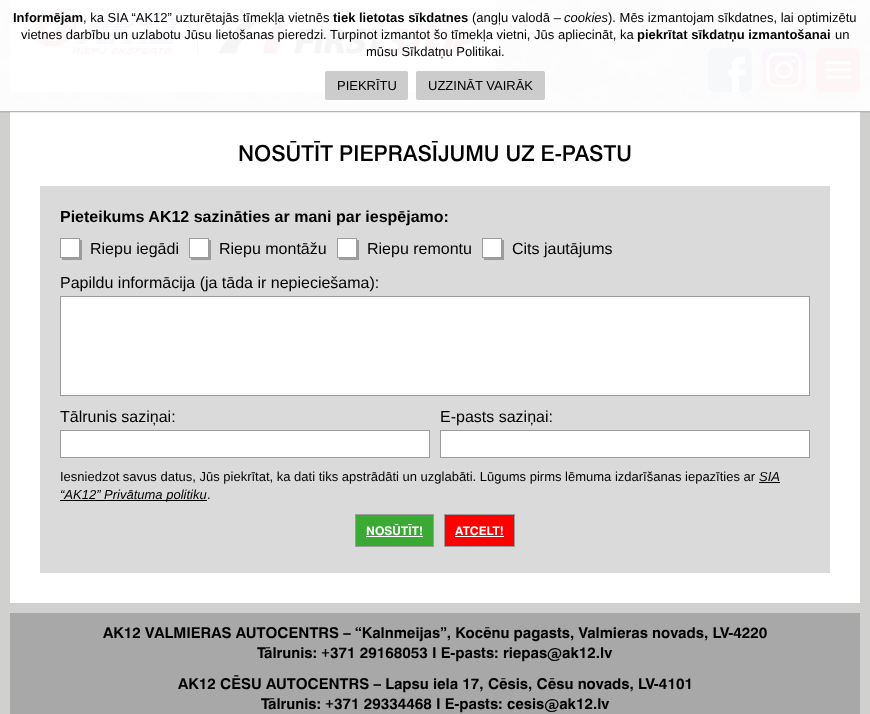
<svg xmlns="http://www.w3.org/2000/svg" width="870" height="714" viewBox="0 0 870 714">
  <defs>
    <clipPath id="clip1"><rect x="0" y="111" width="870" height="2"/></clipPath>
    <filter id="blur1" x="-50%" y="-200%" width="200%" height="500%"><feGaussianBlur stdDeviation="1"/></filter>
  </defs>
  <rect width="100%" height="100%" fill="#d0d0ce"/>
  <rect x="0" y="102" width="870" height="9" fill="#fdfdfd"/>
  <rect x="0" y="0" width="870" height="102" fill="#fcfcfc"/>
  <image x="0" y="0" width="870" height="102" href="img1.png"/>
  <rect x="10" y="0" width="486" height="92" fill="#ffffff"/>
  <rect x="197" y="10" width="1" height="44" fill="#f7f7f7"/>
  <image x="30" y="10" width="147" height="44" href="img2.png"/>
  <image x="218" y="10" width="258" height="44" href="img3.png"/>
  <image x="708" y="48" width="44" height="44" href="img4.png"/>
  <image x="762" y="48" width="44" height="44" href="img5.png"/>
  <rect x="816" y="48" width="44" height="44" rx="6" fill="#fef6f6"/>
  <image x="825" y="61" width="26" height="18" href="img6.png"/>
  <rect x="10" y="112" width="850" height="491" fill="#ffffff"/>
  <g clip-path="url(#clip1)">
    <rect x="-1" y="-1" width="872" height="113" fill="#000000" fill-opacity="0.2" filter="url(#blur1)"/>
  </g>
  <text x="13" y="22" font-family="Liberation Sans" font-size="13" font-weight="bold" fill="#000000">Informējam</text>
  <text x="83" y="22" font-family="Liberation Sans" font-size="13" fill="#000000">, ka SIA “AK12” uzturētajās tīmekļa vietnēs</text>
  <text x="333" y="22" font-family="Liberation Sans" font-size="13" font-weight="bold" fill="#000000">tiek lietotas sīkdatnes</text>
  <text x="472" y="22" font-family="Liberation Sans" font-size="13" fill="#000000">(angļu valodā –</text>
  <text x="564" y="22" font-family="Liberation Sans" font-size="13" font-style="italic" fill="#000000">cookies</text>
  <text x="608" y="22" font-family="Liberation Sans" font-size="13" fill="#000000">). Mēs izmantojam sīkdatnes, lai optimizētu</text>
  <text x="21" y="39" font-family="Liberation Sans" font-size="13" fill="#000000">vietnes darbību un uzlabotu Jūsu lietošanas pieredzi. Turpinot izmantot šo tīmekļa vietni, Jūs apliecināt, ka</text>
  <text x="637" y="39" font-family="Liberation Sans" font-size="13" font-weight="bold" fill="#000000">piekrītat sīkdatņu izmantošanai</text>
  <text x="835" y="39" font-family="Liberation Sans" font-size="13" fill="#000000">un</text>
  <text x="366" y="56" font-family="Liberation Sans" font-size="13" fill="#000000">mūsu Sīkdatņu Politikai.</text>
  <rect x="325" y="71" width="83" height="29" rx="2" fill="#cccccc"/>
  <text x="337" y="90" font-family="Liberation Sans" font-size="13" fill="#000000">PIEKRĪTU</text>
  <rect x="416" y="71" width="129" height="29" rx="2" fill="#cccccc"/>
  <text x="428" y="90" font-family="Liberation Sans" font-size="13" fill="#000000">UZZINĀT VAIRĀK</text>
  <text x="238" y="161" font-family="'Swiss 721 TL'" font-size="22" font-weight="500" fill="#000000">NOSŪTĪT PIEPRASĪJUMU UZ E-PASTU</text>
  <rect x="40" y="186" width="790" height="387" fill="#dadada"/>
  <text x="60" y="222" font-family="Liberation Sans" font-size="16" font-weight="bold" fill="#000000">Pieteikums AK12 sazināties ar mani par iespējamo:</text>
  <rect x="62" y="240" width="20" height="20" fill="#9d9c9c"/>
  <rect x="60.5" y="238.5" width="19" height="19" fill="#ffffff" stroke="#9d9c9c"/>
  <text x="90" y="254" font-family="Liberation Sans" font-size="16" fill="#000000">Riepu iegādi</text>
  <rect x="191" y="240" width="20" height="20" fill="#9d9c9c"/>
  <rect x="189.5" y="238.5" width="19" height="19" fill="#ffffff" stroke="#9d9c9c"/>
  <text x="219" y="254" font-family="Liberation Sans" font-size="16" fill="#000000">Riepu montāžu</text>
  <rect x="339" y="240" width="20" height="20" fill="#9d9c9c"/>
  <rect x="337.5" y="238.5" width="19" height="19" fill="#ffffff" stroke="#9d9c9c"/>
  <text x="367" y="254" font-family="Liberation Sans" font-size="16" fill="#000000">Riepu remontu</text>
  <rect x="484" y="240" width="20" height="20" fill="#9d9c9c"/>
  <rect x="482.5" y="238.5" width="19" height="19" fill="#ffffff" stroke="#9d9c9c"/>
  <text x="512" y="254" font-family="Liberation Sans" font-size="16" fill="#000000">Cits jautājums</text>
  <text x="60" y="288" font-family="Liberation Sans" font-size="16" fill="#000000">Papildu informācija (ja tāda ir nepieciešama):</text>
  <rect x="60.5" y="296.5" width="749" height="99" fill="#ffffff" stroke="#9d9c9c"/>
  <text x="60" y="422" font-family="Liberation Sans" font-size="16" fill="#000000">Tālrunis saziņai:</text>
  <rect x="60.5" y="430.5" width="369" height="27" fill="#ffffff" stroke="#9d9c9c"/>
  <text x="440" y="422" font-family="Liberation Sans" font-size="16" fill="#000000">E-pasts saziņai:</text>
  <rect x="440.5" y="430.5" width="369" height="27" fill="#ffffff" stroke="#9d9c9c"/>
  <text x="60" y="481" font-family="Liberation Sans" font-size="13" fill="#000000">Iesniedzot savus datus, Jūs piekrītat, ka dati tiks apstrādāti un uzglabāti. Lūgums pirms lēmuma izdarīšanas iepazīties ar</text>
  <text x="759" y="481" font-family="Liberation Sans" font-size="13" font-style="italic" fill="#000000">SIA</text>
  <rect x="759" y="482" width="21" height="1" fill="#000000"/>
  <rect x="60" y="500" width="147" height="1" fill="#000000"/>
  <text x="60" y="499" font-family="Liberation Sans" font-size="13" font-style="italic" fill="#000000">“AK12” Privātuma politiku</text>
  <text x="207" y="499" font-family="Liberation Sans" font-size="13" fill="#000000">.</text>
  <rect x="355.5" y="514.5" width="78" height="32" fill="#3baa35" stroke="#9d9c9c"/>
  <text x="366" y="535" font-family="'Swiss 721 TL'" font-size="12" font-weight="bold" fill="#ffffff">NOSŪTĪT!</text>
  <rect x="366" y="536" width="57" height="1" fill="#ffffff"/>
  <rect x="444.5" y="514.5" width="70" height="32" fill="#ff0000" stroke="#9d9c9c"/>
  <text x="455" y="535" font-family="'Swiss 721 TL'" font-size="12" font-weight="bold" fill="#ffffff">ATCELT!</text>
  <rect x="455" y="536" width="49" height="1" fill="#ffffff"/>
  <rect x="10" y="613" width="850" height="101" fill="#a8a8a8"/>
  <text x="103" y="638" font-family="'Swiss 721 TL'" font-size="15" font-weight="bold" fill="#000000">AK12 VALMIERAS AUTOCENTRS – “Kalnmeijas”, Kocēnu pagasts, Valmieras novads, LV-4220</text>
  <text x="257" y="658" font-family="'Swiss 721 TL'" font-size="15" font-weight="bold" fill="#000000">Tālrunis: +371 29168053 I E-pasts: riepas@ak12.lv</text>
  <text x="178" y="689" font-family="'Swiss 721 TL'" font-size="15" font-weight="bold" fill="#000000">AK12 CĒSU AUTOCENTRS – Lapsu iela 17, Cēsis, Cēsu novads, LV-4101</text>
  <text x="261" y="709" font-family="'Swiss 721 TL'" font-size="15" font-weight="bold" fill="#000000">Tālrunis: +371 29334468 I E-pasts: cesis@ak12.lv</text>
</svg>
